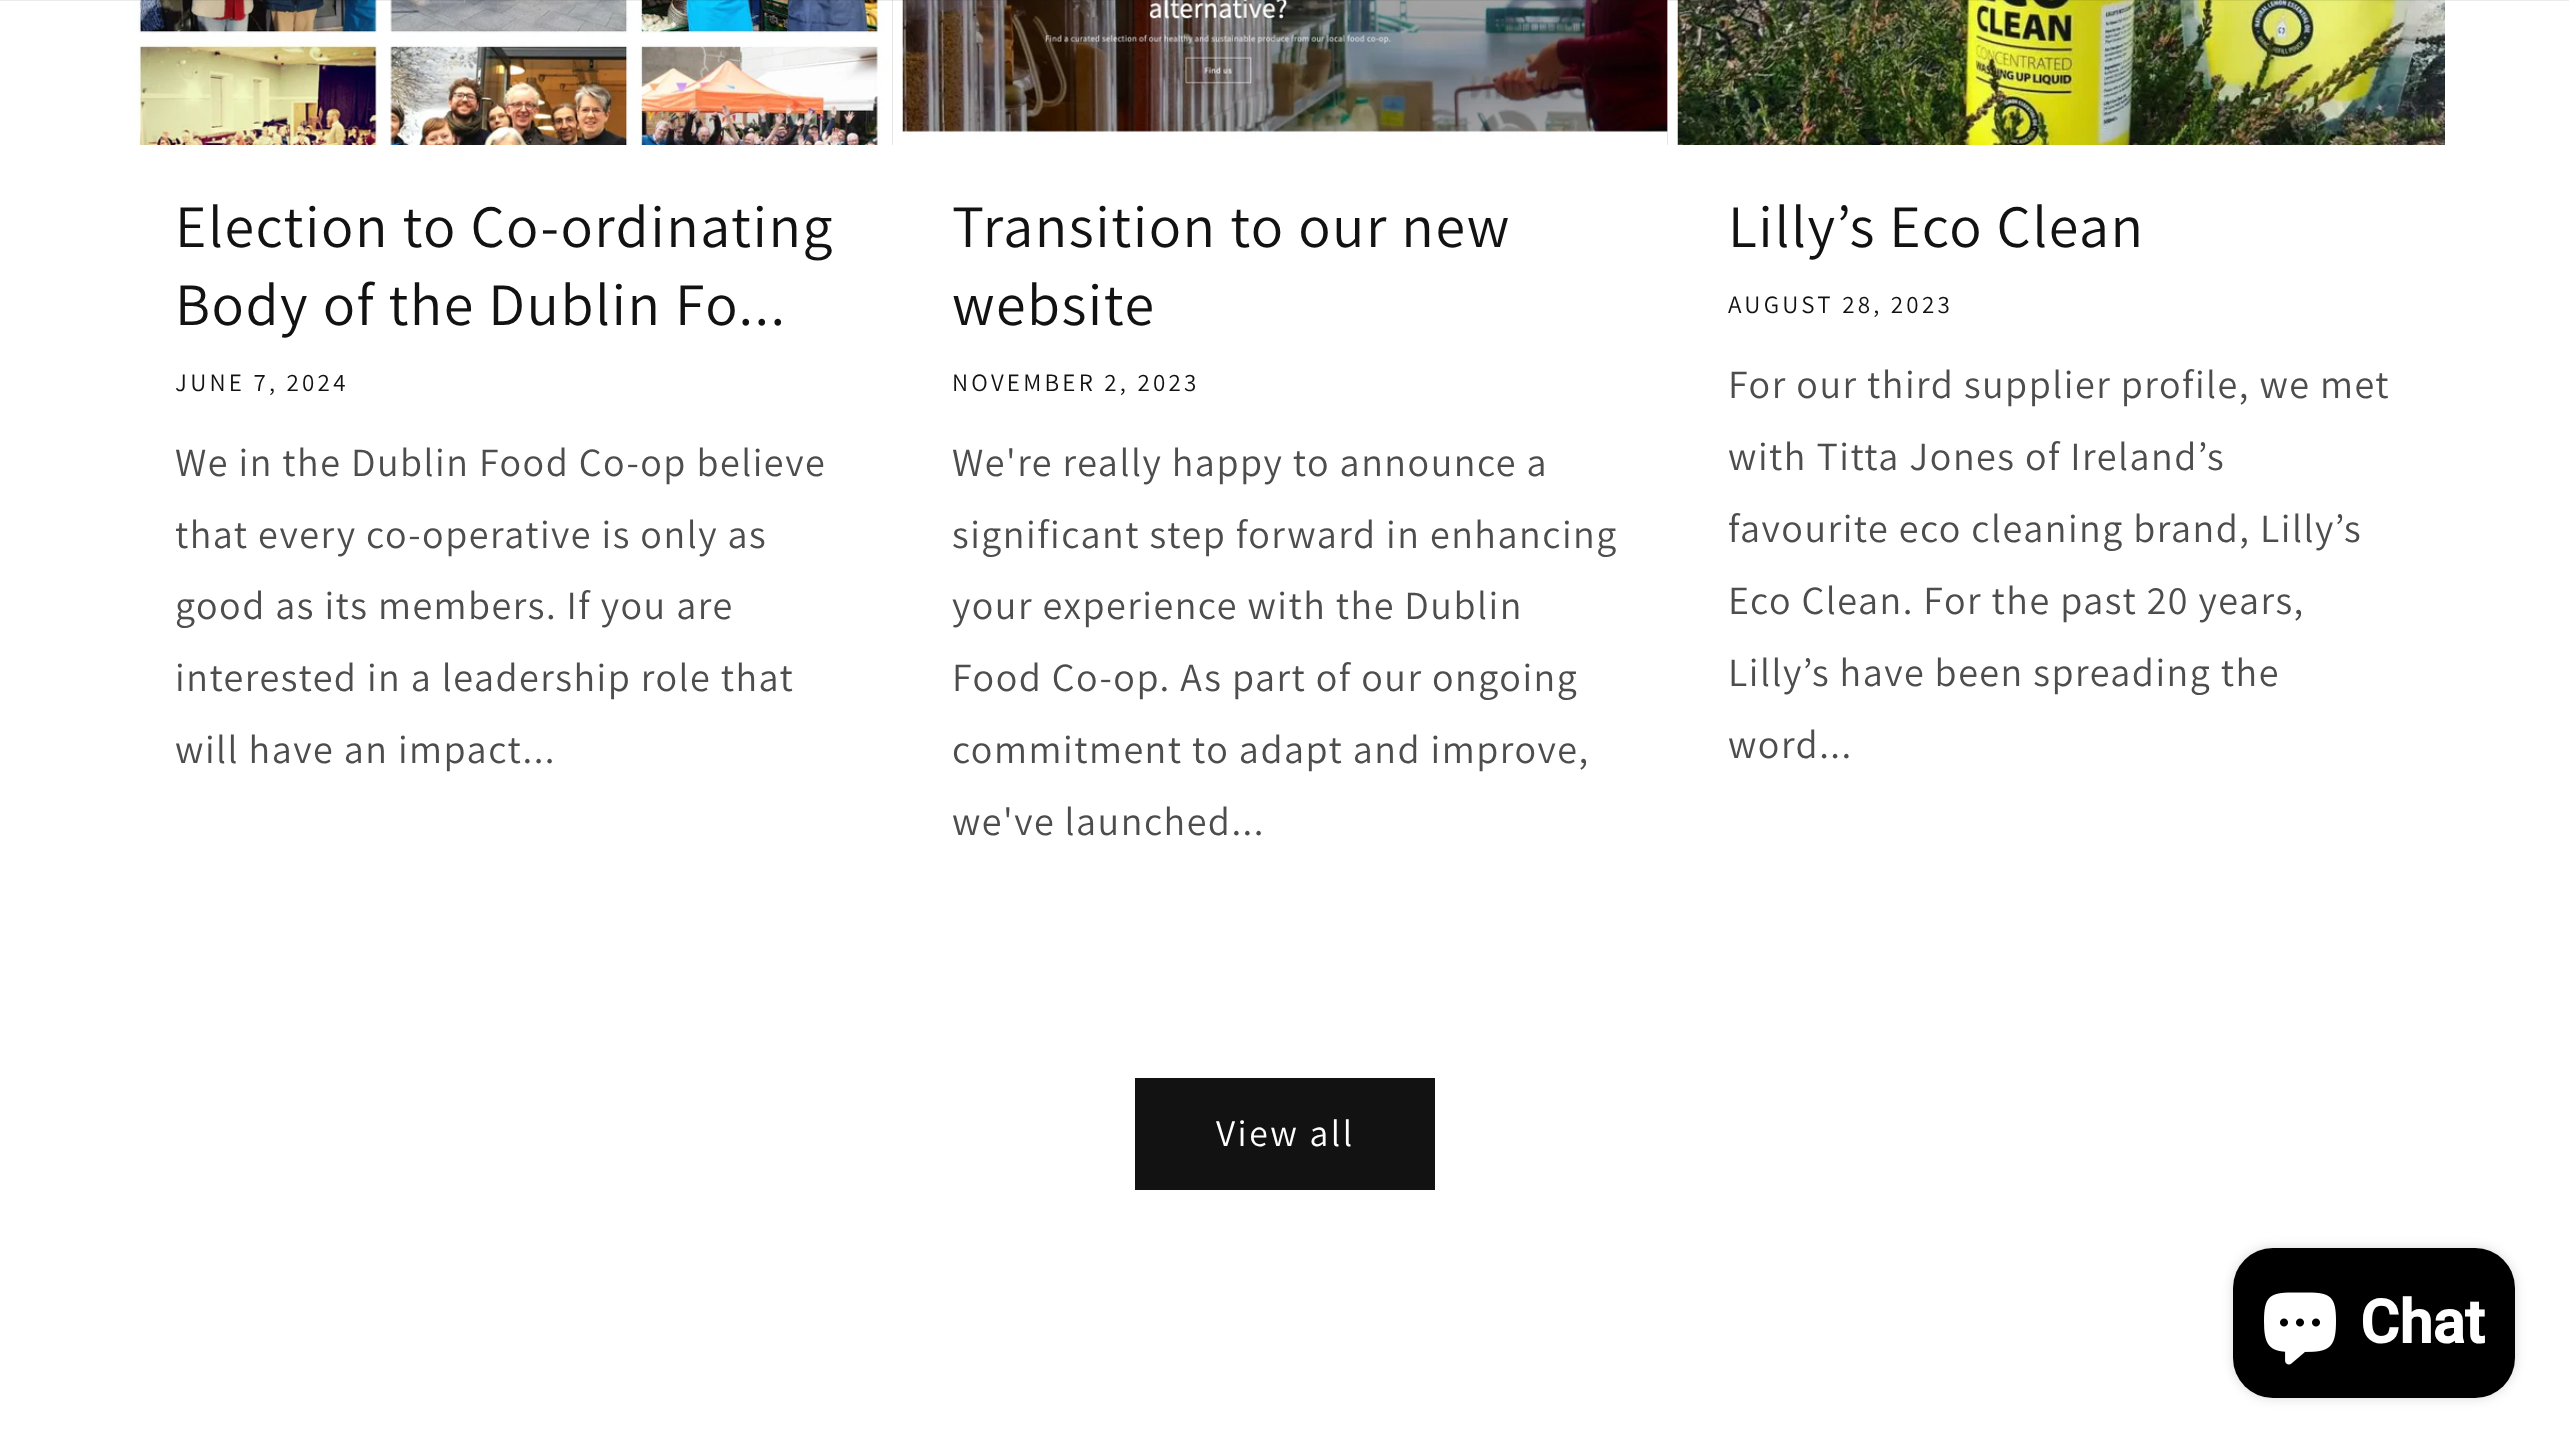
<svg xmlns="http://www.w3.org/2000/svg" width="2569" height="1448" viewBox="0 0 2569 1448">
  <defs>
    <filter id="blur1" x="-50%" y="-200%" width="200%" height="500%"><feGaussianBlur stdDeviation="6"/></filter>
  </defs>
  <rect width="100%" height="100%" fill="#ffffff"/>
  <rect x="892" y="0" width="1" height="145" fill="#dddddd"/>
  <image x="125" y="0" width="768" height="145" href="img1.png"/>
  <rect x="1667" y="0" width="1" height="145" fill="#dddddd"/>
  <image x="902" y="0" width="766" height="145" href="img2.png"/>
  <image x="1677" y="0" width="768" height="145" href="img3.png"/>
  <rect x="0" y="0" width="2569" height="1" fill="#121212" fill-opacity="0.08"/>
  <text x="175" y="247" font-family="Assistant" font-size="60" letter-spacing="1.5" fill="#121212">Election to Co-ordinating</text>
  <text x="175" y="325" font-family="Assistant" font-size="60" letter-spacing="1.5" fill="#121212">Body of the Dublin Fo...</text>
  <text x="175" y="391" font-family="Assistant" font-size="25" letter-spacing="3.25" fill="#121212">JUNE 7, 2024</text>
  <text x="175" y="476" font-family="Assistant" font-size="40" letter-spacing="1.5" fill="#4d4d4d">We in the Dublin Food Co-op believe</text>
  <text x="175" y="548" font-family="Assistant" font-size="40" letter-spacing="1.5" fill="#4d4d4d">that every co-operative is only as</text>
  <text x="175" y="619" font-family="Assistant" font-size="40" letter-spacing="1.5" fill="#4d4d4d">good as its members. If you are</text>
  <text x="175" y="691" font-family="Assistant" font-size="40" letter-spacing="1.5" fill="#4d4d4d">interested in a leadership role that</text>
  <text x="175" y="763" font-family="Assistant" font-size="40" letter-spacing="1.5" fill="#4d4d4d">will have an impact...</text>
  <text x="952" y="247" font-family="Assistant" font-size="60" letter-spacing="1.5" fill="#121212">Transition to our new</text>
  <text x="952" y="325" font-family="Assistant" font-size="60" letter-spacing="1.5" fill="#121212">website</text>
  <text x="952" y="391" font-family="Assistant" font-size="25" letter-spacing="3.25" fill="#121212">NOVEMBER 2, 2023</text>
  <text x="952" y="476" font-family="Assistant" font-size="40" letter-spacing="1.5" fill="#4d4d4d">We're really happy to announce a</text>
  <text x="952" y="548" font-family="Assistant" font-size="40" letter-spacing="1.5" fill="#4d4d4d">significant step forward in enhancing</text>
  <text x="952" y="619" font-family="Assistant" font-size="40" letter-spacing="1.5" fill="#4d4d4d">your experience with the Dublin</text>
  <text x="952" y="691" font-family="Assistant" font-size="40" letter-spacing="1.5" fill="#4d4d4d">Food Co-op. As part of our ongoing</text>
  <text x="952" y="763" font-family="Assistant" font-size="40" letter-spacing="1.5" fill="#4d4d4d">commitment to adapt and improve,</text>
  <text x="952" y="835" font-family="Assistant" font-size="40" letter-spacing="1.5" fill="#4d4d4d">we've launched...</text>
  <text x="1728" y="247" font-family="Assistant" font-size="60" letter-spacing="1.5" fill="#121212">Lilly’s Eco Clean</text>
  <text x="1728" y="313" font-family="Assistant" font-size="25" letter-spacing="3.25" fill="#121212">AUGUST 28, 2023</text>
  <text x="1728" y="398" font-family="Assistant" font-size="40" letter-spacing="1.5" fill="#4d4d4d">For our third supplier profile, we met</text>
  <text x="1728" y="470" font-family="Assistant" font-size="40" letter-spacing="1.5" fill="#4d4d4d">with Titta Jones of Ireland’s</text>
  <text x="1728" y="542" font-family="Assistant" font-size="40" letter-spacing="1.5" fill="#4d4d4d">favourite eco cleaning brand, Lilly’s</text>
  <text x="1728" y="614" font-family="Assistant" font-size="40" letter-spacing="1.5" fill="#4d4d4d">Eco Clean. For the past 20 years,</text>
  <text x="1728" y="686" font-family="Assistant" font-size="40" letter-spacing="1.5" fill="#4d4d4d">Lilly’s have been spreading the</text>
  <text x="1728" y="758" font-family="Assistant" font-size="40" letter-spacing="1.5" fill="#4d4d4d">word...</text>
  <rect x="1135" y="1078" width="300" height="112" fill="#121212"/>
  <text x="1216" y="1146" font-family="Assistant" font-size="37.5" letter-spacing="2.5" fill="#ffffff">View all</text>
  <rect x="2233" y="1248" width="282" height="150" rx="40" fill="#000000" fill-opacity="0.15" filter="url(#blur1)"/>
  <rect x="2233" y="1248" width="282" height="150" rx="40" fill="#000000"/>
  <image x="2264" y="1292" width="72" height="73" href="img4.png"/>
  <text x="2360" y="1343" font-family="Roboto" font-size="60" font-weight="bold" fill="#ffffff">Chat</text>
</svg>
